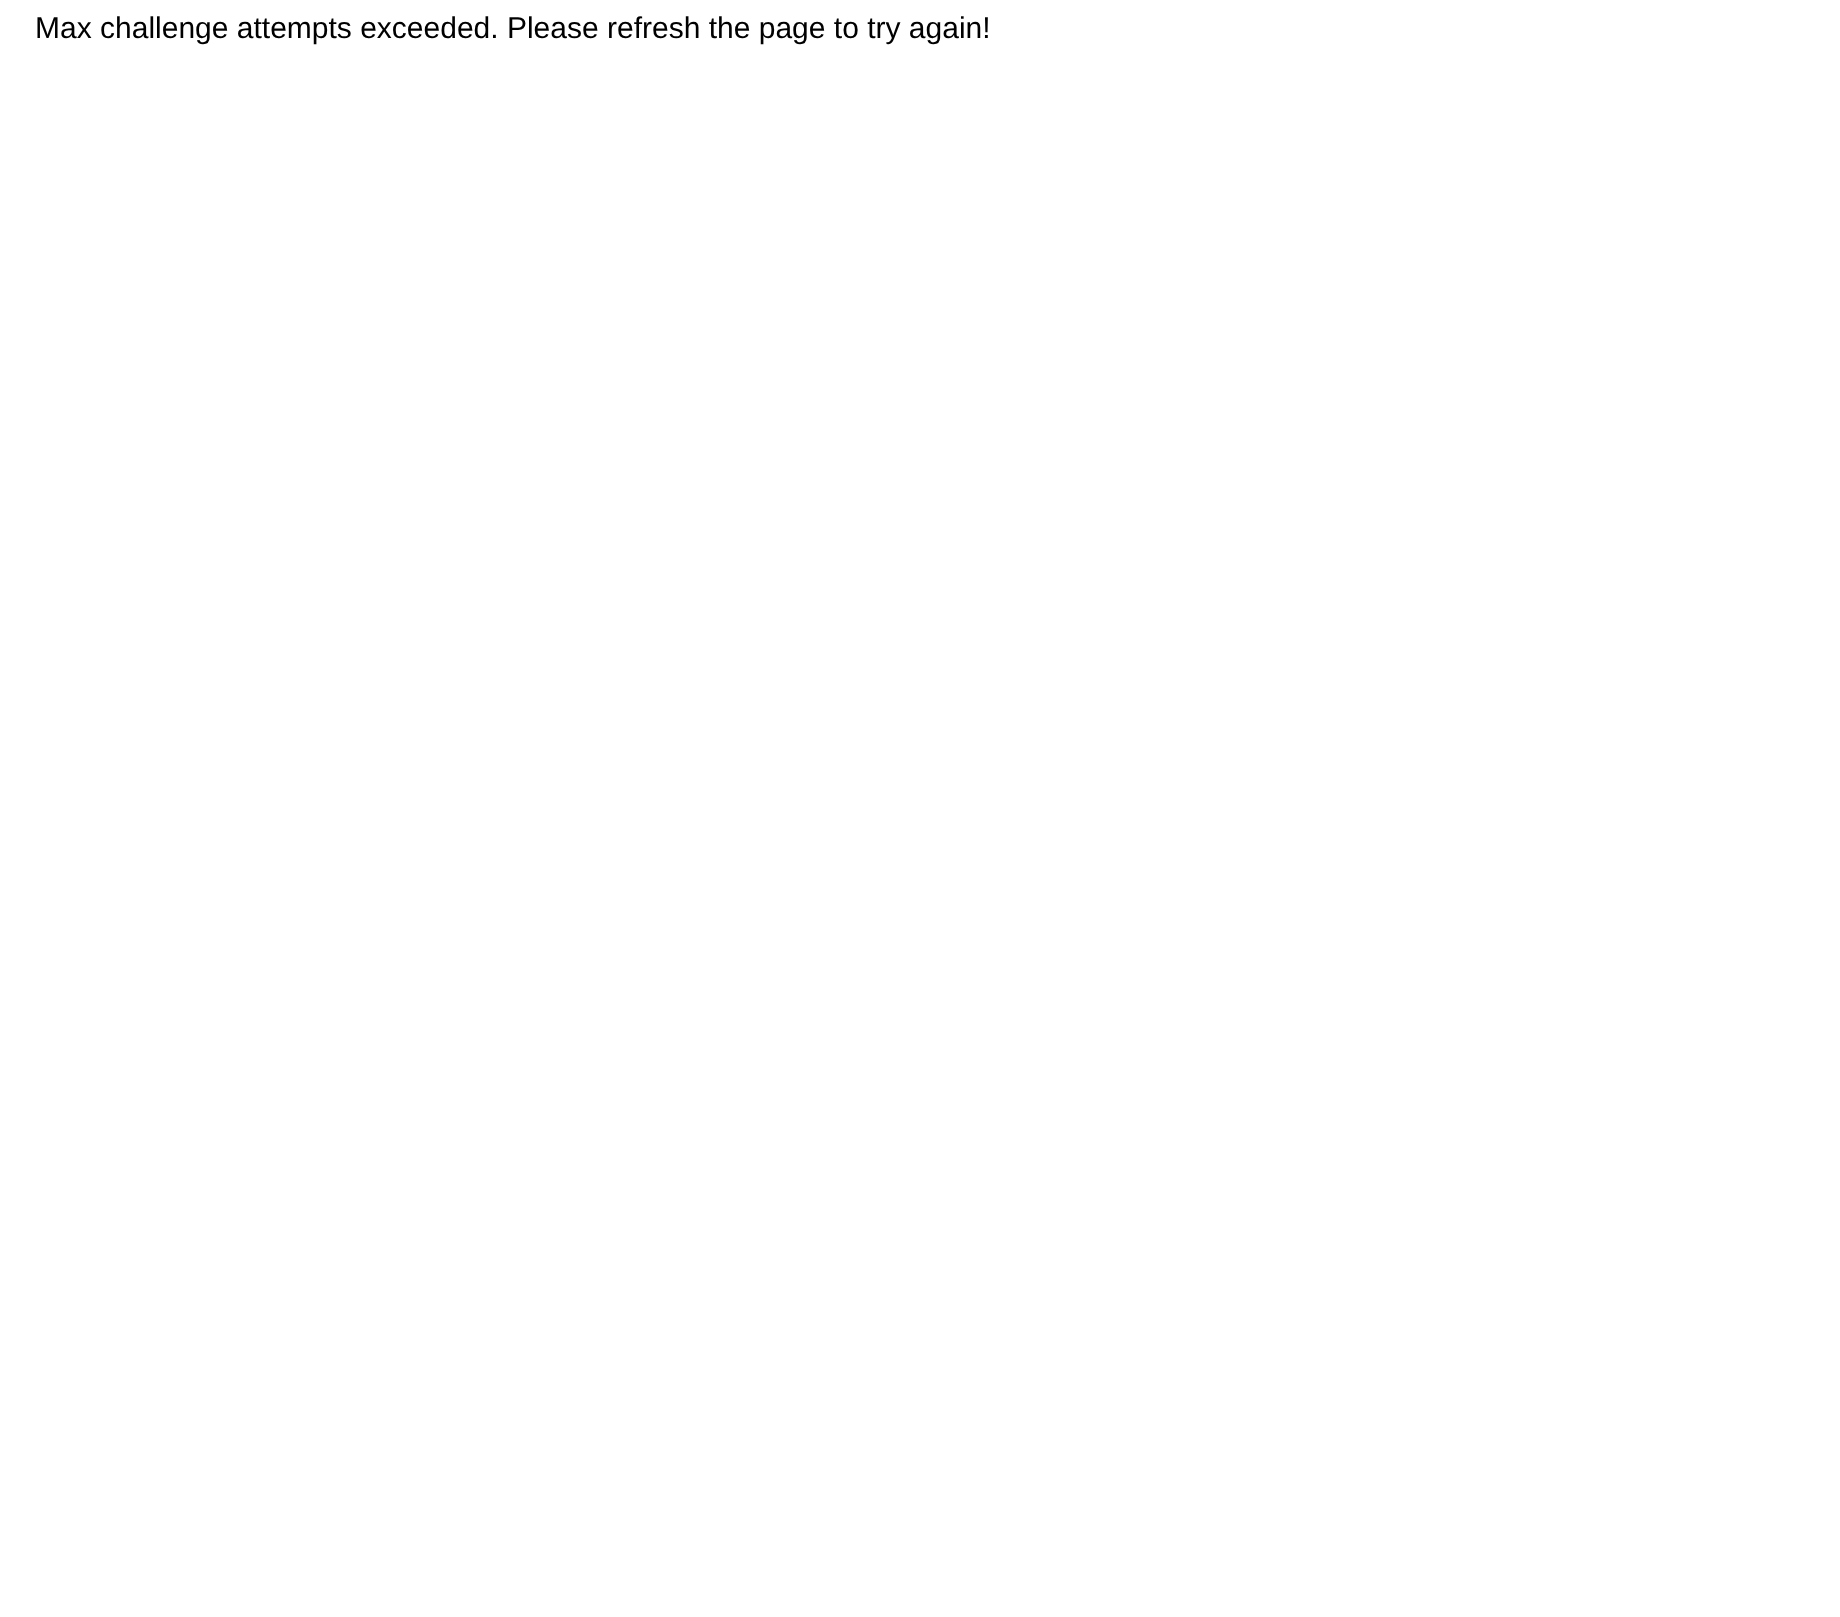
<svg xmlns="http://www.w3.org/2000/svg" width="1840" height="1617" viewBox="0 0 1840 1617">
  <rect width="100%" height="100%" fill="#ffffff"/>
  <text x="35" y="38" font-family="Liberation Sans" font-size="30" fill="#000000">Max challenge attempts exceeded. Please refresh the page to try again!</text>
</svg>
